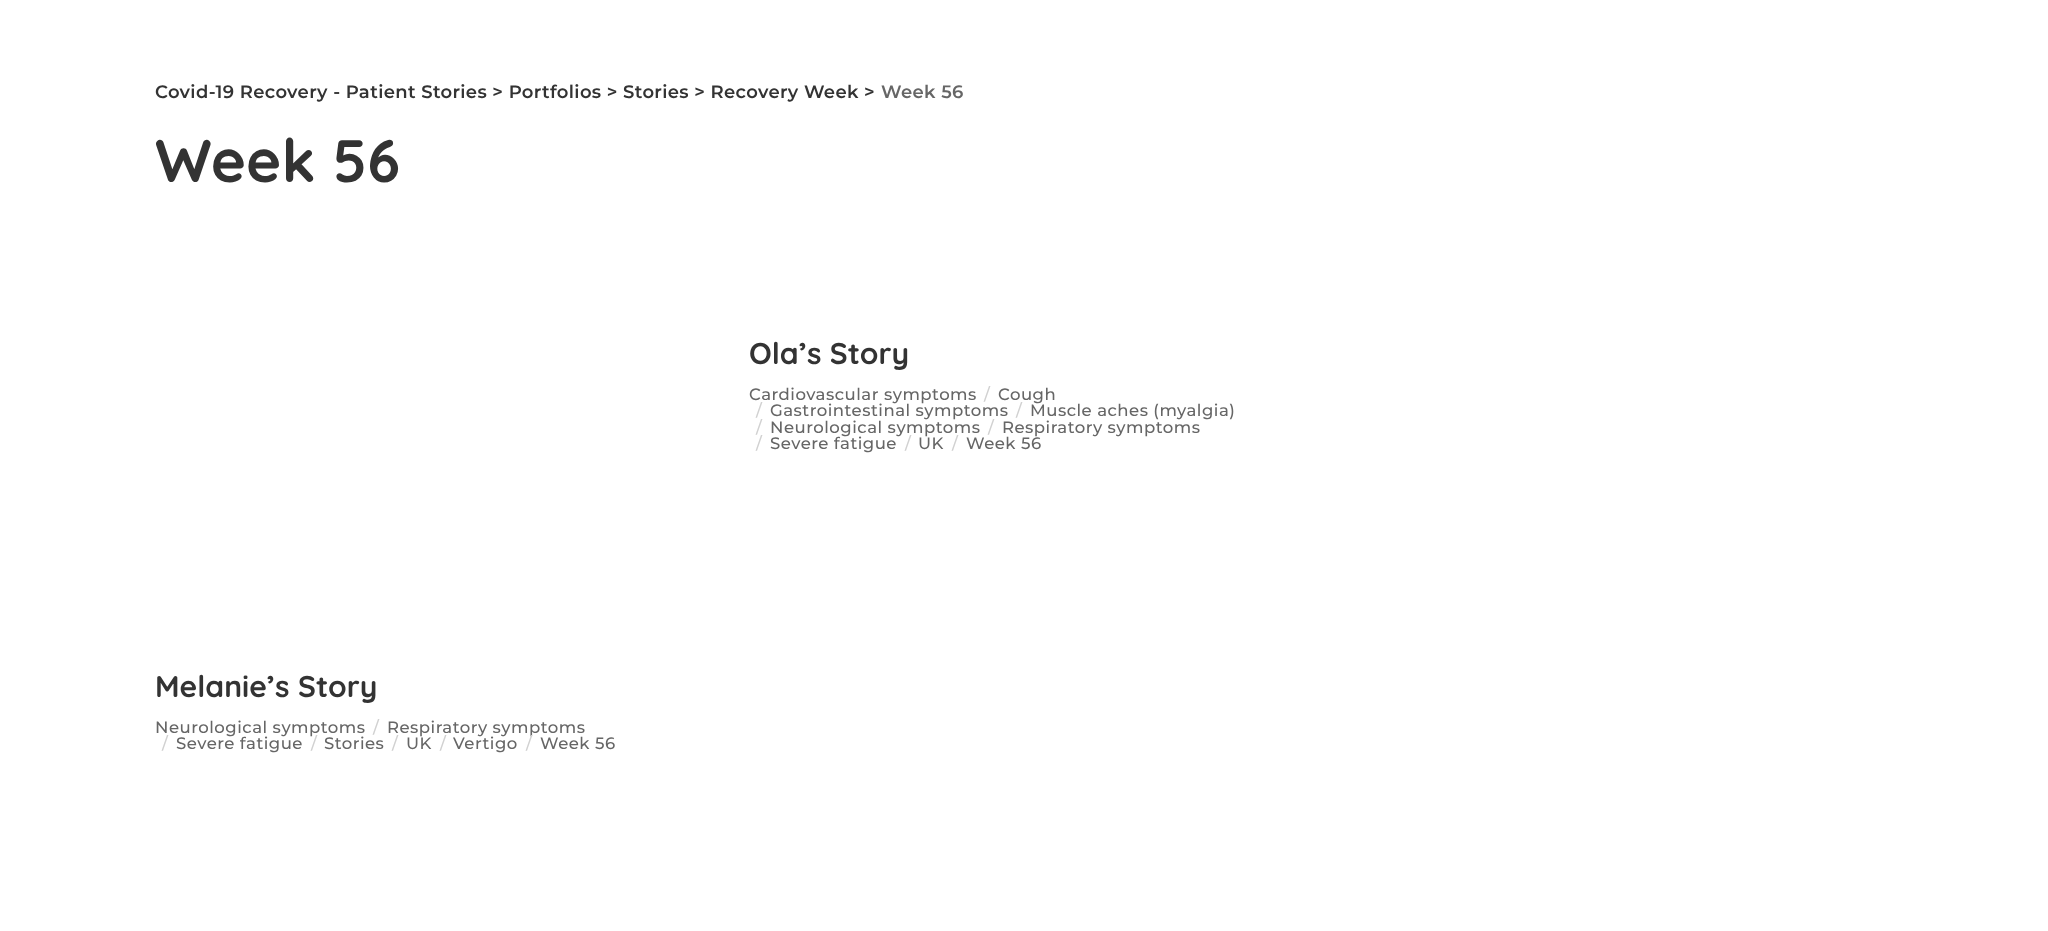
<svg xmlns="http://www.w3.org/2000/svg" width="2048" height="931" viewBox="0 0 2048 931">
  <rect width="100%" height="100%" fill="#ffffff"/>
  <text x="155" y="98" font-family="Montserrat" font-size="18" font-weight="600" letter-spacing="0.35" fill="#333333">Covid-19 Recovery - Patient Stories &gt; Portfolios &gt; Stories &gt; Recovery Week &gt;</text>
  <text x="881" y="98" font-family="Montserrat" font-size="18" font-weight="600" letter-spacing="0.35" fill="#666666">Week 56</text>
  <text x="155" y="182" font-family="Quicksand" font-size="60" font-weight="bold" fill="#333333">Week 56</text>
  <text x="749" y="364" font-family="Quicksand" font-size="30" font-weight="bold" fill="#333333">Ola’s Story</text>
  <text x="749" y="400" font-family="Montserrat" font-size="16.5" font-weight="500" letter-spacing="0.5" fill="#666666">Cardiovascular symptoms</text>
  <text x="984" y="400" font-family="Montserrat" font-size="16.5" font-weight="500" letter-spacing="0.5" fill="#d1d1d1">/</text>
  <text x="998" y="400" font-family="Montserrat" font-size="16.5" font-weight="500" letter-spacing="0.5" fill="#666666">Cough</text>
  <text x="756" y="416" font-family="Montserrat" font-size="16.5" font-weight="500" letter-spacing="0.5" fill="#d1d1d1">/</text>
  <text x="770" y="416" font-family="Montserrat" font-size="16.5" font-weight="500" letter-spacing="0.5" fill="#666666">Gastrointestinal symptoms</text>
  <text x="1016" y="416" font-family="Montserrat" font-size="16.5" font-weight="500" letter-spacing="0.5" fill="#d1d1d1">/</text>
  <text x="1030" y="416" font-family="Montserrat" font-size="16.5" font-weight="500" letter-spacing="0.5" fill="#666666">Muscle aches (myalgia)</text>
  <text x="756" y="433" font-family="Montserrat" font-size="16.5" font-weight="500" letter-spacing="0.5" fill="#d1d1d1">/</text>
  <text x="770" y="433" font-family="Montserrat" font-size="16.5" font-weight="500" letter-spacing="0.5" fill="#666666">Neurological symptoms</text>
  <text x="988" y="433" font-family="Montserrat" font-size="16.5" font-weight="500" letter-spacing="0.5" fill="#d1d1d1">/</text>
  <text x="1002" y="433" font-family="Montserrat" font-size="16.5" font-weight="500" letter-spacing="0.5" fill="#666666">Respiratory symptoms</text>
  <text x="756" y="449" font-family="Montserrat" font-size="16.5" font-weight="500" letter-spacing="0.5" fill="#d1d1d1">/</text>
  <text x="770" y="449" font-family="Montserrat" font-size="16.5" font-weight="500" letter-spacing="0.5" fill="#666666">Severe fatigue</text>
  <text x="905" y="449" font-family="Montserrat" font-size="16.5" font-weight="500" letter-spacing="0.5" fill="#d1d1d1">/</text>
  <text x="918" y="449" font-family="Montserrat" font-size="16.5" font-weight="500" letter-spacing="0.5" fill="#666666">UK</text>
  <text x="952" y="449" font-family="Montserrat" font-size="16.5" font-weight="500" letter-spacing="0.5" fill="#d1d1d1">/</text>
  <text x="966" y="449" font-family="Montserrat" font-size="16.5" font-weight="500" letter-spacing="0.5" fill="#666666">Week 56</text>
  <text x="155" y="697" font-family="Quicksand" font-size="30" font-weight="bold" fill="#333333">Melanie’s Story</text>
  <text x="155" y="733" font-family="Montserrat" font-size="16.5" font-weight="500" letter-spacing="0.5" fill="#666666">Neurological symptoms</text>
  <text x="373" y="733" font-family="Montserrat" font-size="16.5" font-weight="500" letter-spacing="0.5" fill="#d1d1d1">/</text>
  <text x="387" y="733" font-family="Montserrat" font-size="16.5" font-weight="500" letter-spacing="0.5" fill="#666666">Respiratory symptoms</text>
  <text x="162" y="749" font-family="Montserrat" font-size="16.5" font-weight="500" letter-spacing="0.5" fill="#d1d1d1">/</text>
  <text x="176" y="749" font-family="Montserrat" font-size="16.5" font-weight="500" letter-spacing="0.5" fill="#666666">Severe fatigue</text>
  <text x="311" y="749" font-family="Montserrat" font-size="16.5" font-weight="500" letter-spacing="0.5" fill="#d1d1d1">/</text>
  <text x="324" y="749" font-family="Montserrat" font-size="16.5" font-weight="500" letter-spacing="0.5" fill="#666666">Stories</text>
  <text x="392" y="749" font-family="Montserrat" font-size="16.5" font-weight="500" letter-spacing="0.5" fill="#d1d1d1">/</text>
  <text x="406" y="749" font-family="Montserrat" font-size="16.5" font-weight="500" letter-spacing="0.5" fill="#666666">UK</text>
  <text x="440" y="749" font-family="Montserrat" font-size="16.5" font-weight="500" letter-spacing="0.5" fill="#d1d1d1">/</text>
  <text x="453" y="749" font-family="Montserrat" font-size="16.5" font-weight="500" letter-spacing="0.5" fill="#666666">Vertigo</text>
  <text x="526" y="749" font-family="Montserrat" font-size="16.5" font-weight="500" letter-spacing="0.5" fill="#d1d1d1">/</text>
  <text x="540" y="749" font-family="Montserrat" font-size="16.5" font-weight="500" letter-spacing="0.5" fill="#666666">Week 56</text>
</svg>
